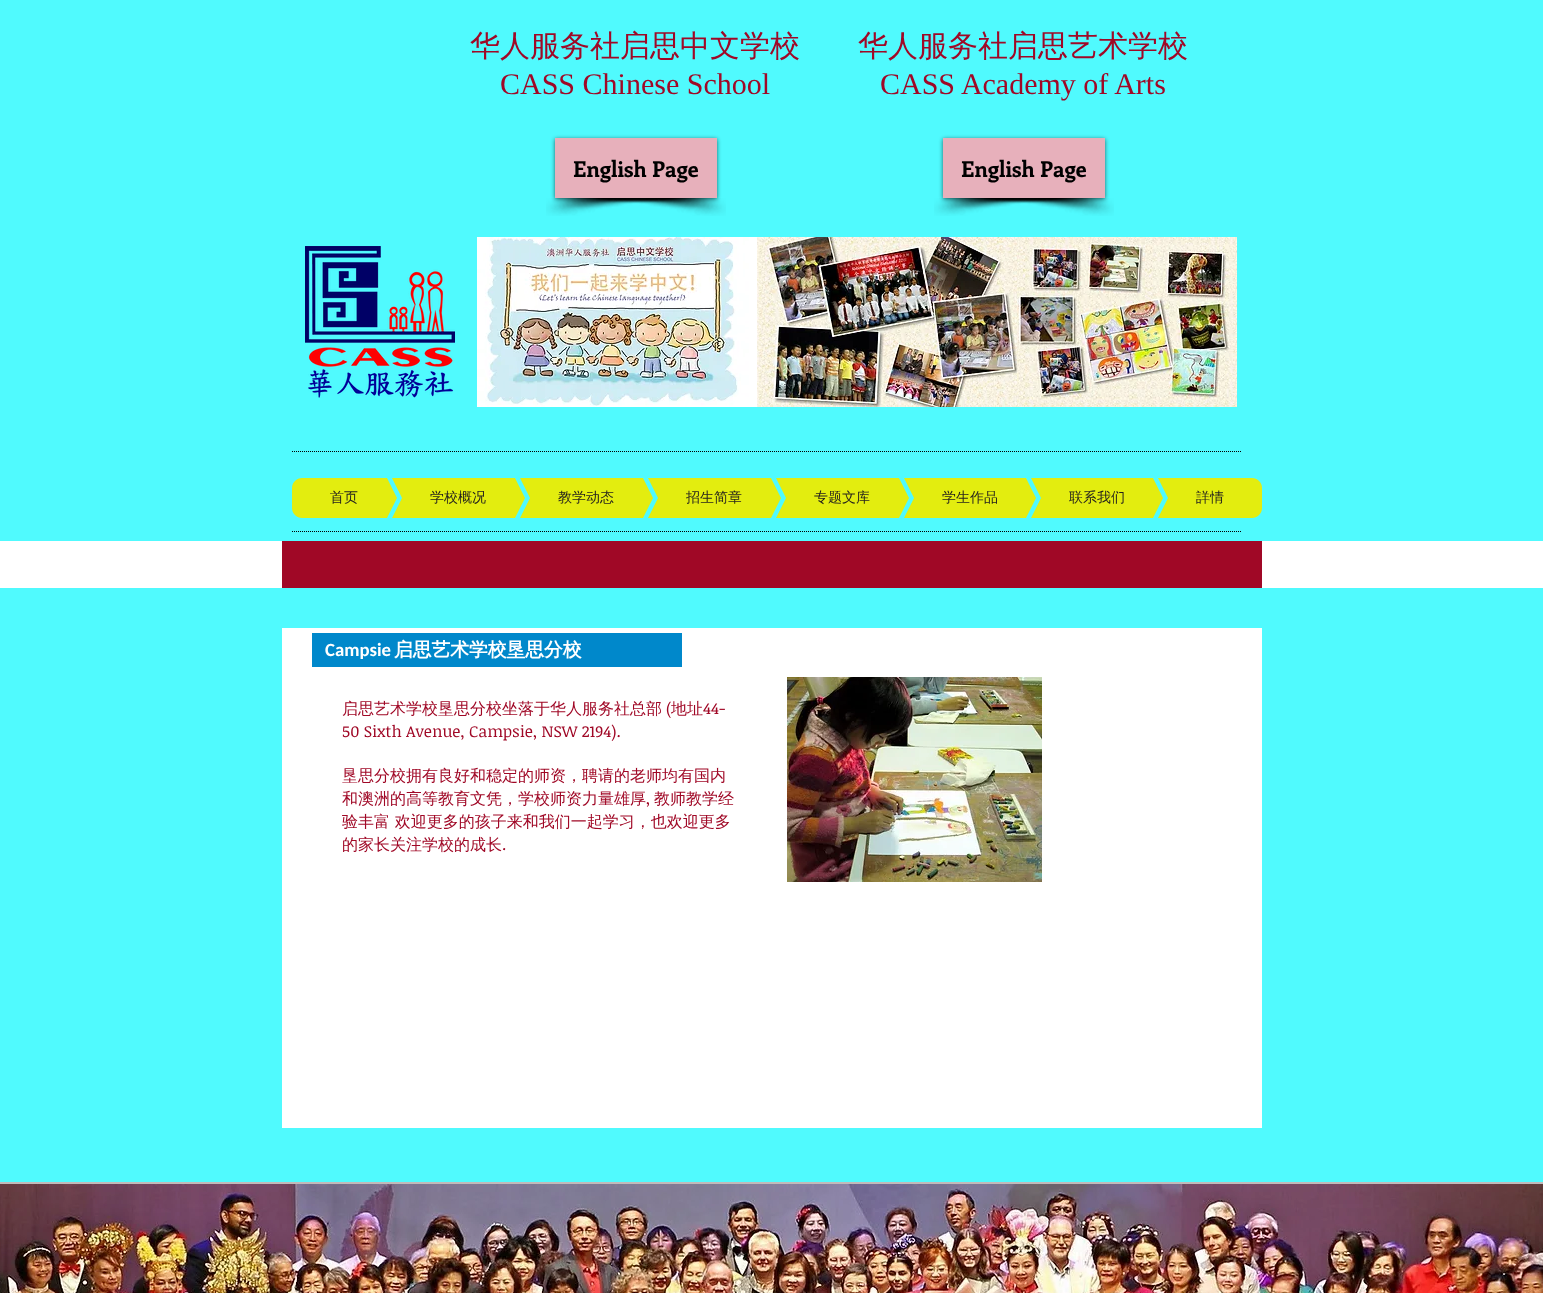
<svg xmlns="http://www.w3.org/2000/svg" width="1543" height="1293" viewBox="0 0 1543 1293">
  <defs>
    <filter id="blur1" x="-50%" y="-200%" width="200%" height="500%"><feGaussianBlur stdDeviation="2"/></filter>
    <clipPath id="clip1"><rect x="327" y="478" width="70" height="40"/></clipPath>
    <clipPath id="clip2"><rect x="332" y="478" width="70" height="40"/></clipPath>
    <clipPath id="clip3"><rect x="455" y="478" width="70" height="40"/></clipPath>
    <clipPath id="clip4"><rect x="460" y="478" width="70" height="40"/></clipPath>
    <clipPath id="clip5"><rect x="583" y="478" width="70" height="40"/></clipPath>
    <clipPath id="clip6"><rect x="588" y="478" width="70" height="40"/></clipPath>
    <clipPath id="clip7"><rect x="711" y="478" width="70" height="40"/></clipPath>
    <clipPath id="clip8"><rect x="716" y="478" width="70" height="40"/></clipPath>
    <clipPath id="clip9"><rect x="839" y="478" width="70" height="40"/></clipPath>
    <clipPath id="clip10"><rect x="844" y="478" width="70" height="40"/></clipPath>
    <clipPath id="clip11"><rect x="966" y="478" width="70" height="40"/></clipPath>
    <clipPath id="clip12"><rect x="971" y="478" width="70" height="40"/></clipPath>
    <clipPath id="clip13"><rect x="1093" y="478" width="70" height="40"/></clipPath>
    <clipPath id="clip14"><rect x="1098" y="478" width="70" height="40"/></clipPath>
  </defs>
  <rect width="100%" height="100%" fill="#50fafe"/>
  <text x="470" y="56" font-family="WenQuanYi Zen Hei" font-size="30" font-weight="500" fill="#a00826">华人服务社启思中文学校</text>
  <text x="500" y="94" font-family="Liberation Serif" font-size="30" fill="#a00826">CASS Chinese School</text>
  <text x="858" y="56" font-family="WenQuanYi Zen Hei" font-size="30" font-weight="500" fill="#a00826">华人服务社启思艺术学校</text>
  <text x="880" y="94" font-family="Liberation Serif" font-size="30" fill="#a00826">CASS Academy of Arts</text>
  <image x="546" y="198" width="154" height="18" href="img1.png"/>
  <image x="596" y="198" width="130" height="18" href="img2.png"/>
  <rect x="555" y="139" width="162" height="60" fill="#000000" fill-opacity="0.6" filter="url(#blur1)"/>
  <rect x="555" y="138" width="162" height="60" fill="#e7b0bb"/>
  <text x="573" y="177" font-family="Enriqueta" font-size="22" font-weight="bold" fill="#000000">English Page</text>
  <image x="934" y="198" width="154" height="18" href="img1.png"/>
  <image x="984" y="198" width="130" height="18" href="img2.png"/>
  <rect x="943" y="139" width="162" height="60" fill="#000000" fill-opacity="0.6" filter="url(#blur1)"/>
  <rect x="943" y="138" width="162" height="60" fill="#e7b0bb"/>
  <text x="961" y="177" font-family="Enriqueta" font-size="22" font-weight="bold" fill="#000000">English Page</text>
  <image x="305" y="246" width="150" height="152" href="img3.png"/>
  <image x="477" y="237" width="280" height="170" href="img4.png"/>
  <image x="757" y="237" width="260" height="170" href="img5.png"/>
  <image x="1017" y="237" width="220" height="170" href="img6.png"/>
  <path d="M292 451.5H1242" fill="none" stroke="#000000" stroke-dasharray="1 1"/>
  <path d="M302 478H327V518H302C296.5 518 292 513.5 292 508V488C292 482.5 296.5 478 302 478Z" fill="#e3ed0f"/>
  <g clip-path="url(#clip1)">
    <path d="M397 498H327V358Z" fill="#e3ed0f"/>
    <path d="M327 498H397L327 638Z" fill="#e3ed0f"/>
  </g>
  <text x="330" y="502" font-family="WenQuanYi Zen Hei" font-size="14" font-weight="500" fill="#221f1e">首页</text>
  <g clip-path="url(#clip2)">
    <path d="M332 358H402V498ZM402 638H332L402 498Z" fill="#e3ed0f"/>
  </g>
  <rect x="402" y="478" width="53" height="40" fill="#e3ed0f"/>
  <g clip-path="url(#clip3)">
    <path d="M525 498H455V358Z" fill="#e3ed0f"/>
    <path d="M455 498H525L455 638Z" fill="#e3ed0f"/>
  </g>
  <text x="430" y="502" font-family="WenQuanYi Zen Hei" font-size="14" font-weight="500" fill="#221f1e">学校概况</text>
  <g clip-path="url(#clip4)">
    <path d="M460 358H530V498ZM530 638H460L530 498Z" fill="#e3ed0f"/>
  </g>
  <rect x="530" y="478" width="53" height="40" fill="#e3ed0f"/>
  <g clip-path="url(#clip5)">
    <path d="M653 498H583V358Z" fill="#e3ed0f"/>
    <path d="M583 498H653L583 638Z" fill="#e3ed0f"/>
  </g>
  <text x="558" y="502" font-family="WenQuanYi Zen Hei" font-size="14" font-weight="500" fill="#221f1e">教学动态</text>
  <g clip-path="url(#clip6)">
    <path d="M588 358H658V498ZM658 638H588L658 498Z" fill="#e3ed0f"/>
  </g>
  <rect x="658" y="478" width="53" height="40" fill="#e3ed0f"/>
  <g clip-path="url(#clip7)">
    <path d="M781 498H711V358Z" fill="#e3ed0f"/>
    <path d="M711 498H781L711 638Z" fill="#e3ed0f"/>
  </g>
  <text x="686" y="502" font-family="WenQuanYi Zen Hei" font-size="14" font-weight="500" fill="#221f1e">招生简章</text>
  <g clip-path="url(#clip8)">
    <path d="M716 358H786V498ZM786 638H716L786 498Z" fill="#e3ed0f"/>
  </g>
  <rect x="786" y="478" width="53" height="40" fill="#e3ed0f"/>
  <g clip-path="url(#clip9)">
    <path d="M909 498H839V358Z" fill="#e3ed0f"/>
    <path d="M839 498H909L839 638Z" fill="#e3ed0f"/>
  </g>
  <text x="814" y="502" font-family="WenQuanYi Zen Hei" font-size="14" font-weight="500" fill="#221f1e">专题文库</text>
  <g clip-path="url(#clip10)">
    <path d="M844 358H914V498ZM914 638H844L914 498Z" fill="#e3ed0f"/>
  </g>
  <rect x="914" y="478" width="52" height="40" fill="#e3ed0f"/>
  <g clip-path="url(#clip11)">
    <path d="M1036 498H966V358Z" fill="#e3ed0f"/>
    <path d="M966 498H1036L966 638Z" fill="#e3ed0f"/>
  </g>
  <text x="942" y="502" font-family="WenQuanYi Zen Hei" font-size="14" font-weight="500" fill="#221f1e">学生作品</text>
  <g clip-path="url(#clip12)">
    <path d="M971 358H1041V498ZM1041 638H971L1041 498Z" fill="#e3ed0f"/>
  </g>
  <rect x="1041" y="478" width="52" height="40" fill="#e3ed0f"/>
  <g clip-path="url(#clip13)">
    <path d="M1163 498H1093V358Z" fill="#e3ed0f"/>
    <path d="M1093 498H1163L1093 638Z" fill="#e3ed0f"/>
  </g>
  <text x="1069" y="502" font-family="WenQuanYi Zen Hei" font-size="14" font-weight="500" fill="#221f1e">联系我们</text>
  <g clip-path="url(#clip14)">
    <path d="M1098 358H1168V498ZM1168 638H1098L1168 498Z" fill="#e3ed0f"/>
  </g>
  <rect x="1168" y="478" width="24" height="40" fill="#e3ed0f"/>
  <path d="M1192 478H1252C1257.5 478 1262 482.5 1262 488V508C1262 513.5 1257.5 518 1252 518H1192Z" fill="#e3ed0f"/>
  <text x="1196" y="502" font-family="WenQuanYi Zen Hei" font-size="14" font-weight="500" fill="#221f1e">詳情</text>
  <path d="M292 531.5H1242" fill="none" stroke="#000000" stroke-dasharray="1 1"/>
  <rect x="0" y="541" width="1543" height="47" fill="#ffffff"/>
  <rect x="282" y="541" width="980" height="47" fill="#a00826"/>
  <rect x="282" y="628" width="980" height="500" fill="#ffffff"/>
  <rect x="312" y="633" width="370" height="34" fill="#0088cb"/>
  <text x="325" y="656" font-family="Carlito" font-size="18.75" font-weight="bold" fill="#ffffff">Campsie</text>
  <text x="394" y="656" font-family="WenQuanYi Zen Hei" font-size="18.75" font-weight="bold" fill="#ffffff">启思艺术学校垦思分校</text>
  <text x="342" y="714" font-family="WenQuanYi Zen Hei" font-size="16" font-weight="500" fill="#a00826">启思艺术学校垦思分校坐落于华人服务社总部</text>
  <text x="666" y="714" font-family="Noticia Text" font-size="16" fill="#a00826">(</text>
  <text x="671" y="714" font-family="WenQuanYi Zen Hei" font-size="16" font-weight="500" fill="#a00826">地址</text>
  <text x="703" y="714" font-family="Noticia Text" font-size="16" fill="#a00826">44-</text>
  <text x="342" y="737" font-family="Noticia Text" font-size="16" fill="#a00826">50 Sixth Avenue, Campsie, NSW 2194).</text>
  <text x="342" y="781" font-family="WenQuanYi Zen Hei" font-size="16" font-weight="500" fill="#a00826">垦思分校拥有良好和稳定的师资，聘请的老师均有国内</text>
  <text x="342" y="804" font-family="WenQuanYi Zen Hei" font-size="16" font-weight="500" fill="#a00826">和澳洲的高等教育文凭，学校师资力量雄厚</text>
  <text x="646" y="804" font-family="Noticia Text" font-size="16" fill="#a00826">,</text>
  <text x="654" y="804" font-family="WenQuanYi Zen Hei" font-size="16" font-weight="500" fill="#a00826">教师教学经</text>
  <text x="342" y="827" font-family="WenQuanYi Zen Hei" font-size="16" font-weight="500" fill="#a00826">验丰富 欢迎更多的孩子来和我们一起学习，也欢迎更多</text>
  <text x="342" y="850" font-family="WenQuanYi Zen Hei" font-size="16" font-weight="500" fill="#a00826">的家长关注学校的成长</text>
  <text x="502" y="850" font-family="Noticia Text" font-size="16" fill="#a00826">.</text>
  <image x="787" y="677" width="255" height="205" href="img7.png"/>
  <rect x="0" y="1182" width="1543" height="2" fill="#c1baba"/>
  <image x="0" y="1184" width="1543" height="109" href="img8.png"/>
</svg>
